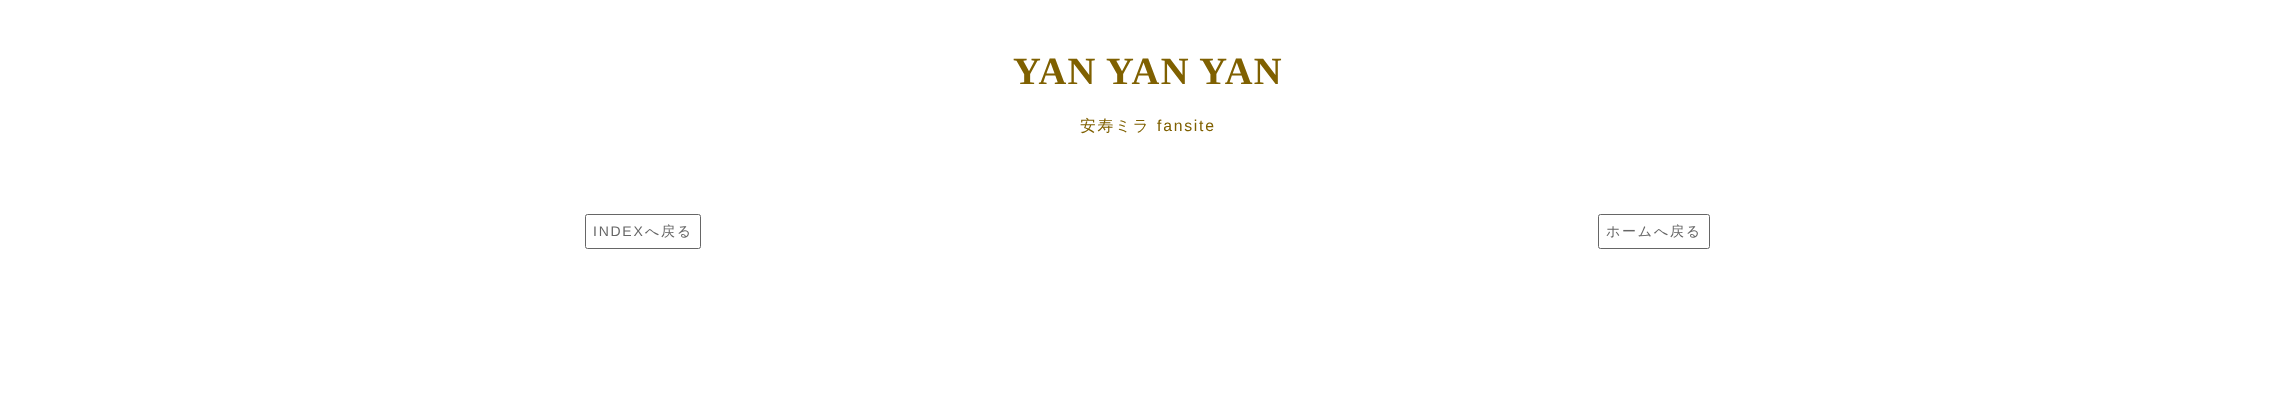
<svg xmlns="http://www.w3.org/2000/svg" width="2295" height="408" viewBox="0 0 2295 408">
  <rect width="100%" height="100%" fill="#ffffff"/>
  <text x="1013" y="84" font-family="Liberation Serif" font-size="38.5" font-weight="bold" letter-spacing="1.25" fill="#7f6000">YAN YAN YAN</text>
  <text x="1080" y="131" font-family="WenQuanYi Zen Hei" font-size="15.75" font-weight="500" letter-spacing="1.75" fill="#7f6000">安寿ミラ</text>
  <text x="1157" y="131" font-family="Liberation Sans" font-size="15.75" letter-spacing="1.75" fill="#7f6000">fansite</text>
  <rect x="585.5" y="214.5" width="115" height="34" rx="2" fill="none" stroke="#666666"/>
  <text x="593" y="236" font-family="Liberation Sans" font-size="14" letter-spacing="1.75" fill="#666666">INDEX</text>
  <text x="645" y="236" font-family="WenQuanYi Zen Hei" font-size="14" font-weight="500" letter-spacing="1.75" fill="#666666">へ戻る</text>
  <rect x="1598.5" y="214.5" width="111" height="34" rx="2" fill="none" stroke="#666666"/>
  <text x="1606" y="236" font-family="WenQuanYi Zen Hei" font-size="14" font-weight="500" letter-spacing="1.75" fill="#666666">ホームへ戻る</text>
</svg>
